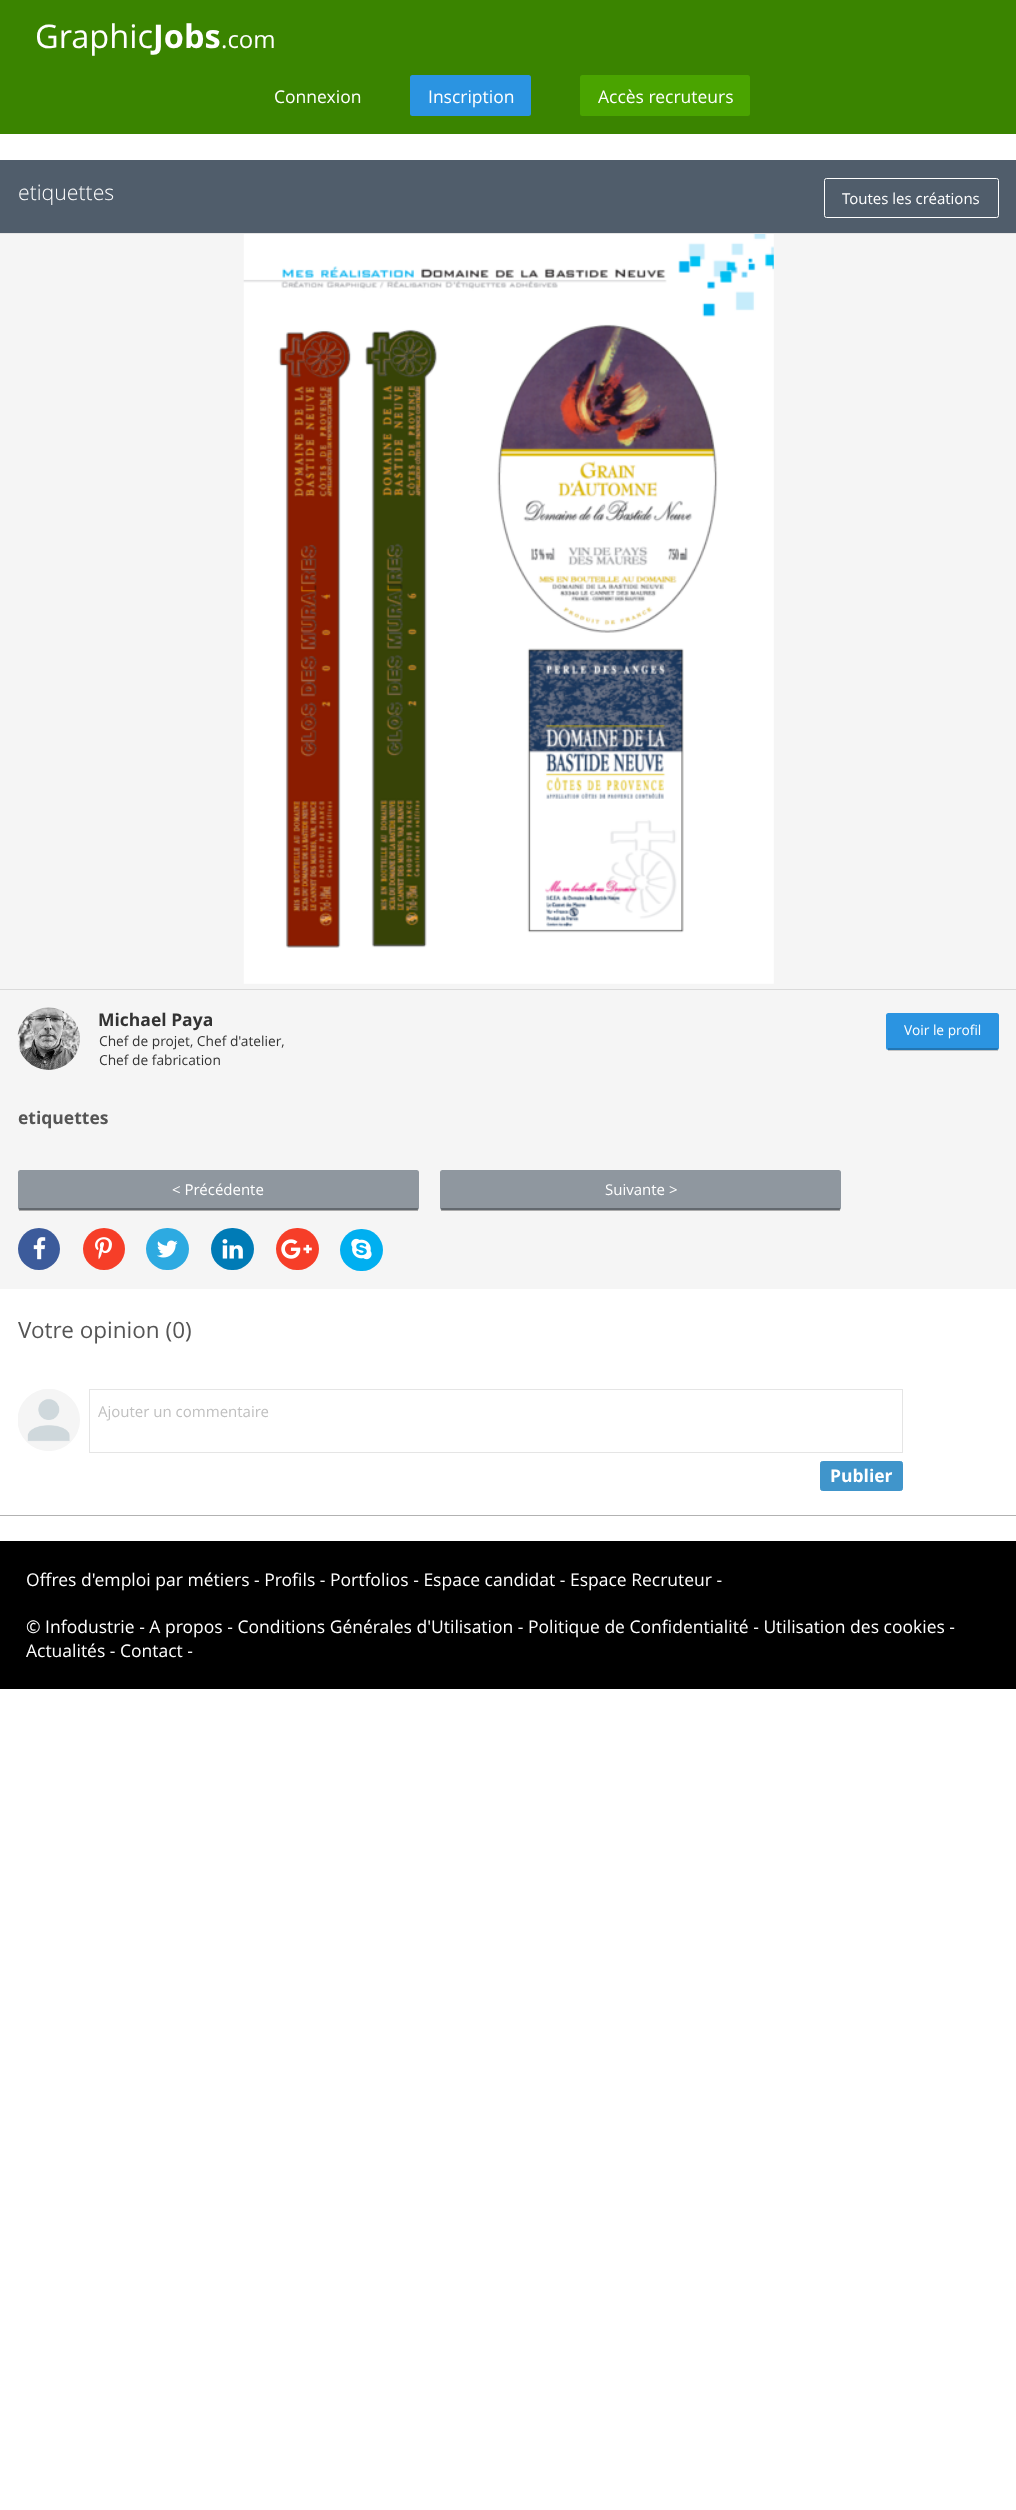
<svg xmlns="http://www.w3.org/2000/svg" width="1016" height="2510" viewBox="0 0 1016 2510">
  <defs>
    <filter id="blur1" x="-50%" y="-200%" width="200%" height="500%"><feGaussianBlur stdDeviation="0.5"/></filter>
  </defs>
  <rect width="100%" height="100%" fill="#ffffff"/>
  <rect x="0" y="0" width="1016" height="134" fill="#3a8400"/>
  <text x="35" y="48" font-family="Open Sans" font-size="32.5" fill="#ffffff">Graphic</text>
  <text x="153" y="48" font-family="Open Sans" font-size="32.5" font-weight="bold" fill="#ffffff">Jobs</text>
  <text x="221" y="48" font-family="Open Sans" font-size="24" fill="#ffffff">.com</text>
  <text x="274" y="103" font-family="Open Sans" font-size="17.5" fill="#ffffff">Connexion</text>
  <rect x="410" y="75" width="121" height="41" rx="2.5" fill="#2b94e1"/>
  <text x="428" y="103" font-family="Open Sans" font-size="17.5" fill="#ffffff">Inscription</text>
  <rect x="580" y="75" width="170" height="41" rx="2.5" fill="#4aa400"/>
  <text x="598" y="103" font-family="Open Sans" font-size="17.5" fill="#ffffff">Accès recruteurs</text>
  <rect x="0" y="161" width="1016" height="1355" fill="#000000" fill-opacity="0.3" filter="url(#blur1)"/>
  <rect x="0" y="1289" width="1016" height="226" fill="#ffffff"/>
  <rect x="0" y="160" width="1016" height="73" fill="#505d6b"/>
  <rect x="0" y="233" width="1016" height="1" fill="#e5e5e5"/>
  <text x="18" y="200" font-family="Open Sans" font-size="21.25" font-weight="300" fill="#ffffff">etiquettes</text>
  <rect x="824.5" y="178.5" width="174" height="39" rx="2" fill="none" stroke="#ffffff"/>
  <text x="842" y="204" font-family="Open Sans" font-size="15" fill="#ffffff">Toutes les créations</text>
  <rect x="0" y="234" width="1016" height="1055" fill="#f5f5f5"/>
  <image x="243" y="234" width="531" height="750" href="img1.png"/>
  <rect x="0" y="989" width="1016" height="1" fill="#dadada"/>
  <image x="17" y="1007" width="63" height="63" href="img2.png"/>
  <text x="98" y="1026" font-family="Open Sans" font-size="17.5" font-weight="bold" fill="#333333">Michael Paya</text>
  <rect x="886" y="1013" width="113" height="37" rx="2.5" fill="#2b94e1"/>
  <rect x="888" y="1048" width="110" height="3" fill="#000000" fill-opacity="0.2"/>
  <text x="904" y="1035" font-family="Open Sans" font-size="13.75" fill="#ffffff">Voir le profil</text>
  <text x="99" y="1046" font-family="Open Sans" font-size="13.75" fill="#333333">Chef de projet, Chef d'atelier,</text>
  <text x="99" y="1065" font-family="Open Sans" font-size="13.75" fill="#333333">Chef de fabrication</text>
  <text x="18" y="1124" font-family="Open Sans" font-size="17.5" font-weight="bold" fill="#555555">etiquettes</text>
  <rect x="18" y="1170" width="401" height="40" rx="2.5" fill="#8f979f"/>
  <rect x="19" y="1208" width="399" height="3" fill="#000000" fill-opacity="0.3"/>
  <text x="172" y="1195" font-family="Open Sans" font-size="15" fill="#ffffff">&lt; Précédente</text>
  <rect x="440" y="1170" width="401" height="40" rx="2.5" fill="#8f979f"/>
  <rect x="441" y="1208" width="399" height="3" fill="#000000" fill-opacity="0.3"/>
  <text x="605" y="1195" font-family="Open Sans" font-size="15" fill="#ffffff">Suivante &gt;</text>
  <circle cx="39" cy="1249" r="21" fill="#3c5b9b"/>
  <image x="33" y="1237" width="13" height="23" href="img3.png"/>
  <circle cx="104" cy="1249" r="21" fill="#f63e28"/>
  <image x="95" y="1237" width="17" height="23" href="img4.png"/>
  <rect x="146" y="1228" width="43" height="42" rx="21" fill="#2daae1"/>
  <image x="157" y="1240" width="21" height="18" href="img5.png"/>
  <rect x="211" y="1228" width="43" height="42" rx="21" fill="#007bb6"/>
  <image x="222" y="1239" width="21" height="20" href="img6.png"/>
  <rect x="276" y="1228" width="43" height="42" rx="21" fill="#f63e28"/>
  <image x="281" y="1239" width="31" height="20" href="img7.png"/>
  <rect x="340" y="1229" width="43" height="42" rx="21" fill="#00aff0"/>
  <image x="351" y="1238" width="21" height="22" href="img8.png"/>
  <text x="18" y="1338" font-family="Open Sans" font-size="22.5" fill="#555555">Votre opinion (0)</text>
  <image x="18" y="1389" width="62" height="62" href="img9.png"/>
  <rect x="89.5" y="1389.5" width="813" height="63" fill="none" stroke="#e5e5e5"/>
  <text x="98" y="1417" font-family="Open Sans" font-size="15" fill="#c0c0c0">Ajouter un commentaire</text>
  <rect x="820.5" y="1461.5" width="82" height="29" rx="2" fill="#4095cb" stroke="#4095cb"/>
  <text x="830" y="1482" font-family="Open Sans" font-size="17.5" font-weight="bold" fill="#ffffff">Publier</text>
  <rect x="0" y="1541" width="1016" height="148" fill="#000000"/>
  <text x="26" y="1586" font-family="Open Sans" font-size="17.5" fill="#ffffff">Offres d'emploi par métiers - Profils - Portfolios - Espace candidat - Espace Recruteur -</text>
  <text x="26" y="1633" font-family="Open Sans" font-size="17.5" fill="#ffffff">© Infodustrie - A propos - Conditions Générales d'Utilisation - Politique de Confidentialité - Utilisation des cookies -</text>
  <text x="26" y="1657" font-family="Open Sans" font-size="17.5" fill="#ffffff">Actualités - Contact -</text>
</svg>
